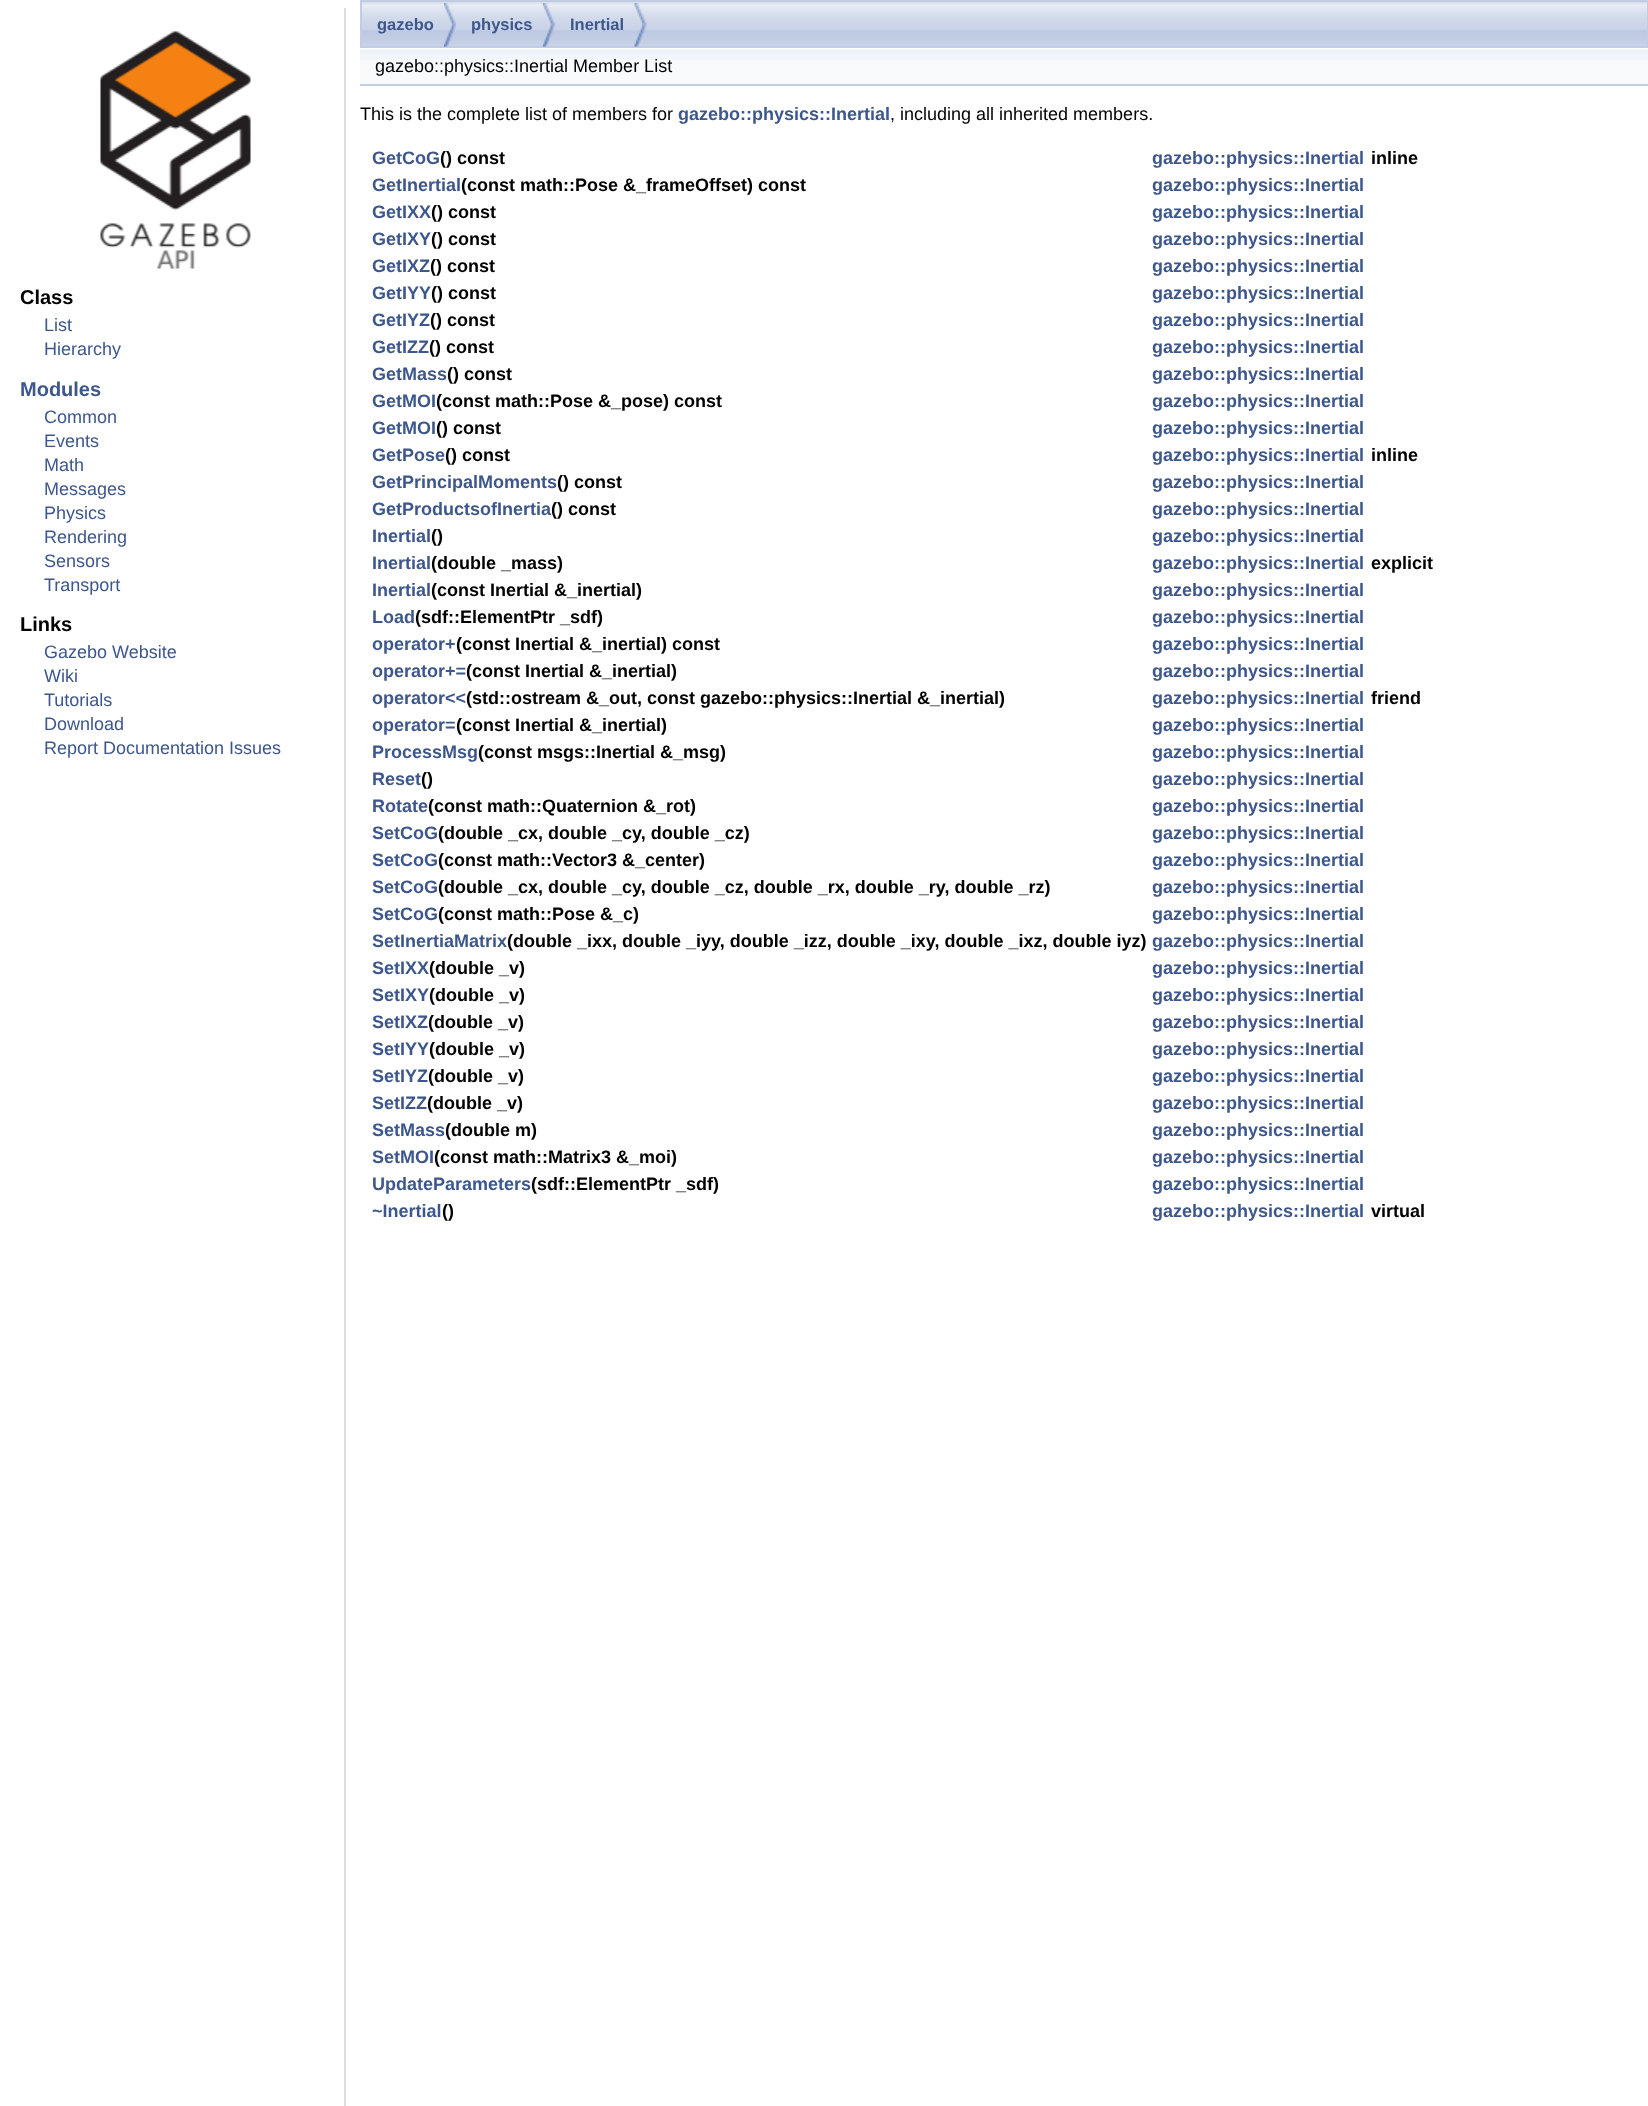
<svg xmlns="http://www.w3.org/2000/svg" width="1648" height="2106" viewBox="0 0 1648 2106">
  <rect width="100%" height="100%" fill="#ffffff"/>
  <image x="362" y="2" width="1285" height="44" href="img1.png"/>
  <rect x="361" y="1" width="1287" height="46" fill="none" stroke="#c2cde4" stroke-width="2"/>
  <image x="444" y="3" width="12" height="44" href="img2.png"/>
  <text x="377" y="30" font-family="Liberation Sans" font-size="16.5" font-weight="bold" fill="#3d578c">gazebo</text>
  <image x="543" y="3" width="12" height="44" href="img3.png"/>
  <text x="471" y="30" font-family="Liberation Sans" font-size="16.5" font-weight="bold" fill="#3d578c">physics</text>
  <image x="634" y="3" width="13" height="44" href="img4.png"/>
  <text x="570" y="30" font-family="Liberation Sans" font-size="16.5" font-weight="bold" fill="#3d578c">Inertial</text>
  <rect x="360" y="60" width="1288" height="24" fill="#f9fafc"/>
  <image x="360" y="48" width="1288" height="12" href="img5.png"/>
  <rect x="360" y="84" width="1288" height="2" fill="#c4cfe5"/>
  <text x="375" y="72" font-family="Liberation Sans" font-size="18" fill="#000000">gazebo::physics::Inertial Member List</text>
  <rect x="344" y="8" width="2" height="2098" fill="#dddddd"/>
  <image x="100" y="31" width="151" height="238" href="img6.png"/>
  <text x="20" y="304" font-family="Liberation Sans" font-size="20" font-weight="bold" fill="#000000">Class</text>
  <text x="44" y="331" font-family="Liberation Sans" font-size="18" fill="#3d578c">List</text>
  <text x="44" y="355" font-family="Liberation Sans" font-size="18" fill="#3d578c">Hierarchy</text>
  <text x="20" y="396" font-family="Liberation Sans" font-size="20" font-weight="bold" fill="#3d578c">Modules</text>
  <text x="44" y="423" font-family="Liberation Sans" font-size="18" fill="#3d578c">Common</text>
  <text x="44" y="447" font-family="Liberation Sans" font-size="18" fill="#3d578c">Events</text>
  <text x="44" y="471" font-family="Liberation Sans" font-size="18" fill="#3d578c">Math</text>
  <text x="44" y="495" font-family="Liberation Sans" font-size="18" fill="#3d578c">Messages</text>
  <text x="44" y="519" font-family="Liberation Sans" font-size="18" fill="#3d578c">Physics</text>
  <text x="44" y="543" font-family="Liberation Sans" font-size="18" fill="#3d578c">Rendering</text>
  <text x="44" y="567" font-family="Liberation Sans" font-size="18" fill="#3d578c">Sensors</text>
  <text x="44" y="591" font-family="Liberation Sans" font-size="18" fill="#3d578c">Transport</text>
  <text x="20" y="631" font-family="Liberation Sans" font-size="20" font-weight="bold" fill="#000000">Links</text>
  <text x="44" y="658" font-family="Liberation Sans" font-size="18" fill="#3d578c">Gazebo Website</text>
  <text x="44" y="682" font-family="Liberation Sans" font-size="18" fill="#3d578c">Wiki</text>
  <text x="44" y="706" font-family="Liberation Sans" font-size="18" fill="#3d578c">Tutorials</text>
  <text x="44" y="730" font-family="Liberation Sans" font-size="18" fill="#3d578c">Download</text>
  <text x="44" y="754" font-family="Liberation Sans" font-size="18" fill="#3d578c">Report Documentation Issues</text>
  <text x="360" y="120" font-family="Liberation Sans" font-size="18" fill="#000000">This is the complete list of members for</text>
  <text x="678" y="120" font-family="Liberation Sans" font-size="18" font-weight="bold" fill="#3d578c">gazebo::physics::Inertial</text>
  <text x="890" y="120" font-family="Liberation Sans" font-size="18" fill="#000000">, including all inherited members.</text>
  <text x="372" y="164" font-family="Liberation Sans" font-size="18" font-weight="bold" fill="#3d578c">GetCoG</text>
  <text x="440" y="164" font-family="Liberation Sans" font-size="18" font-weight="bold" fill="#000000">() const</text>
  <text x="1152" y="164" font-family="Liberation Sans" font-size="18" font-weight="bold" fill="#3d578c">gazebo::physics::Inertial</text>
  <text x="1371" y="164" font-family="Liberation Sans" font-size="18" font-weight="bold" fill="#000000">inline</text>
  <text x="372" y="191" font-family="Liberation Sans" font-size="18" font-weight="bold" fill="#3d578c">GetInertial</text>
  <text x="461" y="191" font-family="Liberation Sans" font-size="18" font-weight="bold" fill="#000000">(const math::Pose &amp;_frameOffset) const</text>
  <text x="1152" y="191" font-family="Liberation Sans" font-size="18" font-weight="bold" fill="#3d578c">gazebo::physics::Inertial</text>
  <text x="372" y="218" font-family="Liberation Sans" font-size="18" font-weight="bold" fill="#3d578c">GetIXX</text>
  <text x="431" y="218" font-family="Liberation Sans" font-size="18" font-weight="bold" fill="#000000">() const</text>
  <text x="1152" y="218" font-family="Liberation Sans" font-size="18" font-weight="bold" fill="#3d578c">gazebo::physics::Inertial</text>
  <text x="372" y="245" font-family="Liberation Sans" font-size="18" font-weight="bold" fill="#3d578c">GetIXY</text>
  <text x="431" y="245" font-family="Liberation Sans" font-size="18" font-weight="bold" fill="#000000">() const</text>
  <text x="1152" y="245" font-family="Liberation Sans" font-size="18" font-weight="bold" fill="#3d578c">gazebo::physics::Inertial</text>
  <text x="372" y="272" font-family="Liberation Sans" font-size="18" font-weight="bold" fill="#3d578c">GetIXZ</text>
  <text x="430" y="272" font-family="Liberation Sans" font-size="18" font-weight="bold" fill="#000000">() const</text>
  <text x="1152" y="272" font-family="Liberation Sans" font-size="18" font-weight="bold" fill="#3d578c">gazebo::physics::Inertial</text>
  <text x="372" y="299" font-family="Liberation Sans" font-size="18" font-weight="bold" fill="#3d578c">GetIYY</text>
  <text x="431" y="299" font-family="Liberation Sans" font-size="18" font-weight="bold" fill="#000000">() const</text>
  <text x="1152" y="299" font-family="Liberation Sans" font-size="18" font-weight="bold" fill="#3d578c">gazebo::physics::Inertial</text>
  <text x="372" y="326" font-family="Liberation Sans" font-size="18" font-weight="bold" fill="#3d578c">GetIYZ</text>
  <text x="430" y="326" font-family="Liberation Sans" font-size="18" font-weight="bold" fill="#000000">() const</text>
  <text x="1152" y="326" font-family="Liberation Sans" font-size="18" font-weight="bold" fill="#3d578c">gazebo::physics::Inertial</text>
  <text x="372" y="353" font-family="Liberation Sans" font-size="18" font-weight="bold" fill="#3d578c">GetIZZ</text>
  <text x="429" y="353" font-family="Liberation Sans" font-size="18" font-weight="bold" fill="#000000">() const</text>
  <text x="1152" y="353" font-family="Liberation Sans" font-size="18" font-weight="bold" fill="#3d578c">gazebo::physics::Inertial</text>
  <text x="372" y="380" font-family="Liberation Sans" font-size="18" font-weight="bold" fill="#3d578c">GetMass</text>
  <text x="447" y="380" font-family="Liberation Sans" font-size="18" font-weight="bold" fill="#000000">() const</text>
  <text x="1152" y="380" font-family="Liberation Sans" font-size="18" font-weight="bold" fill="#3d578c">gazebo::physics::Inertial</text>
  <text x="372" y="407" font-family="Liberation Sans" font-size="18" font-weight="bold" fill="#3d578c">GetMOI</text>
  <text x="436" y="407" font-family="Liberation Sans" font-size="18" font-weight="bold" fill="#000000">(const math::Pose &amp;_pose) const</text>
  <text x="1152" y="407" font-family="Liberation Sans" font-size="18" font-weight="bold" fill="#3d578c">gazebo::physics::Inertial</text>
  <text x="372" y="434" font-family="Liberation Sans" font-size="18" font-weight="bold" fill="#3d578c">GetMOI</text>
  <text x="436" y="434" font-family="Liberation Sans" font-size="18" font-weight="bold" fill="#000000">() const</text>
  <text x="1152" y="434" font-family="Liberation Sans" font-size="18" font-weight="bold" fill="#3d578c">gazebo::physics::Inertial</text>
  <text x="372" y="461" font-family="Liberation Sans" font-size="18" font-weight="bold" fill="#3d578c">GetPose</text>
  <text x="445" y="461" font-family="Liberation Sans" font-size="18" font-weight="bold" fill="#000000">() const</text>
  <text x="1152" y="461" font-family="Liberation Sans" font-size="18" font-weight="bold" fill="#3d578c">gazebo::physics::Inertial</text>
  <text x="1371" y="461" font-family="Liberation Sans" font-size="18" font-weight="bold" fill="#000000">inline</text>
  <text x="372" y="488" font-family="Liberation Sans" font-size="18" font-weight="bold" fill="#3d578c">GetPrincipalMoments</text>
  <text x="557" y="488" font-family="Liberation Sans" font-size="18" font-weight="bold" fill="#000000">() const</text>
  <text x="1152" y="488" font-family="Liberation Sans" font-size="18" font-weight="bold" fill="#3d578c">gazebo::physics::Inertial</text>
  <text x="372" y="515" font-family="Liberation Sans" font-size="18" font-weight="bold" fill="#3d578c">GetProductsofInertia</text>
  <text x="551" y="515" font-family="Liberation Sans" font-size="18" font-weight="bold" fill="#000000">() const</text>
  <text x="1152" y="515" font-family="Liberation Sans" font-size="18" font-weight="bold" fill="#3d578c">gazebo::physics::Inertial</text>
  <text x="372" y="542" font-family="Liberation Sans" font-size="18" font-weight="bold" fill="#3d578c">Inertial</text>
  <text x="431" y="542" font-family="Liberation Sans" font-size="18" font-weight="bold" fill="#000000">()</text>
  <text x="1152" y="542" font-family="Liberation Sans" font-size="18" font-weight="bold" fill="#3d578c">gazebo::physics::Inertial</text>
  <text x="372" y="569" font-family="Liberation Sans" font-size="18" font-weight="bold" fill="#3d578c">Inertial</text>
  <text x="431" y="569" font-family="Liberation Sans" font-size="18" font-weight="bold" fill="#000000">(double _mass)</text>
  <text x="1152" y="569" font-family="Liberation Sans" font-size="18" font-weight="bold" fill="#3d578c">gazebo::physics::Inertial</text>
  <text x="1371" y="569" font-family="Liberation Sans" font-size="18" font-weight="bold" fill="#000000">explicit</text>
  <text x="372" y="596" font-family="Liberation Sans" font-size="18" font-weight="bold" fill="#3d578c">Inertial</text>
  <text x="431" y="596" font-family="Liberation Sans" font-size="18" font-weight="bold" fill="#000000">(const Inertial &amp;_inertial)</text>
  <text x="1152" y="596" font-family="Liberation Sans" font-size="18" font-weight="bold" fill="#3d578c">gazebo::physics::Inertial</text>
  <text x="372" y="623" font-family="Liberation Sans" font-size="18" font-weight="bold" fill="#3d578c">Load</text>
  <text x="415" y="623" font-family="Liberation Sans" font-size="18" font-weight="bold" fill="#000000">(sdf::ElementPtr _sdf)</text>
  <text x="1152" y="623" font-family="Liberation Sans" font-size="18" font-weight="bold" fill="#3d578c">gazebo::physics::Inertial</text>
  <text x="372" y="650" font-family="Liberation Sans" font-size="18" font-weight="bold" fill="#3d578c">operator+</text>
  <text x="456" y="650" font-family="Liberation Sans" font-size="18" font-weight="bold" fill="#000000">(const Inertial &amp;_inertial) const</text>
  <text x="1152" y="650" font-family="Liberation Sans" font-size="18" font-weight="bold" fill="#3d578c">gazebo::physics::Inertial</text>
  <text x="372" y="677" font-family="Liberation Sans" font-size="18" font-weight="bold" fill="#3d578c">operator+=</text>
  <text x="466" y="677" font-family="Liberation Sans" font-size="18" font-weight="bold" fill="#000000">(const Inertial &amp;_inertial)</text>
  <text x="1152" y="677" font-family="Liberation Sans" font-size="18" font-weight="bold" fill="#3d578c">gazebo::physics::Inertial</text>
  <text x="372" y="704" font-family="Liberation Sans" font-size="18" font-weight="bold" fill="#3d578c">operator&lt;&lt;</text>
  <text x="466" y="704" font-family="Liberation Sans" font-size="18" font-weight="bold" fill="#000000">(std::ostream &amp;_out, const gazebo::physics::Inertial &amp;_inertial)</text>
  <text x="1152" y="704" font-family="Liberation Sans" font-size="18" font-weight="bold" fill="#3d578c">gazebo::physics::Inertial</text>
  <text x="1371" y="704" font-family="Liberation Sans" font-size="18" font-weight="bold" fill="#000000">friend</text>
  <text x="372" y="731" font-family="Liberation Sans" font-size="18" font-weight="bold" fill="#3d578c">operator=</text>
  <text x="456" y="731" font-family="Liberation Sans" font-size="18" font-weight="bold" fill="#000000">(const Inertial &amp;_inertial)</text>
  <text x="1152" y="731" font-family="Liberation Sans" font-size="18" font-weight="bold" fill="#3d578c">gazebo::physics::Inertial</text>
  <text x="372" y="758" font-family="Liberation Sans" font-size="18" font-weight="bold" fill="#3d578c">ProcessMsg</text>
  <text x="478" y="758" font-family="Liberation Sans" font-size="18" font-weight="bold" fill="#000000">(const msgs::Inertial &amp;_msg)</text>
  <text x="1152" y="758" font-family="Liberation Sans" font-size="18" font-weight="bold" fill="#3d578c">gazebo::physics::Inertial</text>
  <text x="372" y="785" font-family="Liberation Sans" font-size="18" font-weight="bold" fill="#3d578c">Reset</text>
  <text x="421" y="785" font-family="Liberation Sans" font-size="18" font-weight="bold" fill="#000000">()</text>
  <text x="1152" y="785" font-family="Liberation Sans" font-size="18" font-weight="bold" fill="#3d578c">gazebo::physics::Inertial</text>
  <text x="372" y="812" font-family="Liberation Sans" font-size="18" font-weight="bold" fill="#3d578c">Rotate</text>
  <text x="428" y="812" font-family="Liberation Sans" font-size="18" font-weight="bold" fill="#000000">(const math::Quaternion &amp;_rot)</text>
  <text x="1152" y="812" font-family="Liberation Sans" font-size="18" font-weight="bold" fill="#3d578c">gazebo::physics::Inertial</text>
  <text x="372" y="839" font-family="Liberation Sans" font-size="18" font-weight="bold" fill="#3d578c">SetCoG</text>
  <text x="438" y="839" font-family="Liberation Sans" font-size="18" font-weight="bold" fill="#000000">(double _cx, double _cy, double _cz)</text>
  <text x="1152" y="839" font-family="Liberation Sans" font-size="18" font-weight="bold" fill="#3d578c">gazebo::physics::Inertial</text>
  <text x="372" y="866" font-family="Liberation Sans" font-size="18" font-weight="bold" fill="#3d578c">SetCoG</text>
  <text x="438" y="866" font-family="Liberation Sans" font-size="18" font-weight="bold" fill="#000000">(const math::Vector3 &amp;_center)</text>
  <text x="1152" y="866" font-family="Liberation Sans" font-size="18" font-weight="bold" fill="#3d578c">gazebo::physics::Inertial</text>
  <text x="372" y="893" font-family="Liberation Sans" font-size="18" font-weight="bold" fill="#3d578c">SetCoG</text>
  <text x="438" y="893" font-family="Liberation Sans" font-size="18" font-weight="bold" fill="#000000">(double _cx, double _cy, double _cz, double _rx, double _ry, double _rz)</text>
  <text x="1152" y="893" font-family="Liberation Sans" font-size="18" font-weight="bold" fill="#3d578c">gazebo::physics::Inertial</text>
  <text x="372" y="920" font-family="Liberation Sans" font-size="18" font-weight="bold" fill="#3d578c">SetCoG</text>
  <text x="438" y="920" font-family="Liberation Sans" font-size="18" font-weight="bold" fill="#000000">(const math::Pose &amp;_c)</text>
  <text x="1152" y="920" font-family="Liberation Sans" font-size="18" font-weight="bold" fill="#3d578c">gazebo::physics::Inertial</text>
  <text x="372" y="947" font-family="Liberation Sans" font-size="18" font-weight="bold" fill="#3d578c">SetInertiaMatrix</text>
  <text x="507" y="947" font-family="Liberation Sans" font-size="18" font-weight="bold" fill="#000000">(double _ixx, double _iyy, double _izz, double _ixy, double _ixz, double iyz)</text>
  <text x="1152" y="947" font-family="Liberation Sans" font-size="18" font-weight="bold" fill="#3d578c">gazebo::physics::Inertial</text>
  <text x="372" y="974" font-family="Liberation Sans" font-size="18" font-weight="bold" fill="#3d578c">SetIXX</text>
  <text x="429" y="974" font-family="Liberation Sans" font-size="18" font-weight="bold" fill="#000000">(double _v)</text>
  <text x="1152" y="974" font-family="Liberation Sans" font-size="18" font-weight="bold" fill="#3d578c">gazebo::physics::Inertial</text>
  <text x="372" y="1001" font-family="Liberation Sans" font-size="18" font-weight="bold" fill="#3d578c">SetIXY</text>
  <text x="429" y="1001" font-family="Liberation Sans" font-size="18" font-weight="bold" fill="#000000">(double _v)</text>
  <text x="1152" y="1001" font-family="Liberation Sans" font-size="18" font-weight="bold" fill="#3d578c">gazebo::physics::Inertial</text>
  <text x="372" y="1028" font-family="Liberation Sans" font-size="18" font-weight="bold" fill="#3d578c">SetIXZ</text>
  <text x="428" y="1028" font-family="Liberation Sans" font-size="18" font-weight="bold" fill="#000000">(double _v)</text>
  <text x="1152" y="1028" font-family="Liberation Sans" font-size="18" font-weight="bold" fill="#3d578c">gazebo::physics::Inertial</text>
  <text x="372" y="1055" font-family="Liberation Sans" font-size="18" font-weight="bold" fill="#3d578c">SetIYY</text>
  <text x="429" y="1055" font-family="Liberation Sans" font-size="18" font-weight="bold" fill="#000000">(double _v)</text>
  <text x="1152" y="1055" font-family="Liberation Sans" font-size="18" font-weight="bold" fill="#3d578c">gazebo::physics::Inertial</text>
  <text x="372" y="1082" font-family="Liberation Sans" font-size="18" font-weight="bold" fill="#3d578c">SetIYZ</text>
  <text x="428" y="1082" font-family="Liberation Sans" font-size="18" font-weight="bold" fill="#000000">(double _v)</text>
  <text x="1152" y="1082" font-family="Liberation Sans" font-size="18" font-weight="bold" fill="#3d578c">gazebo::physics::Inertial</text>
  <text x="372" y="1109" font-family="Liberation Sans" font-size="18" font-weight="bold" fill="#3d578c">SetIZZ</text>
  <text x="427" y="1109" font-family="Liberation Sans" font-size="18" font-weight="bold" fill="#000000">(double _v)</text>
  <text x="1152" y="1109" font-family="Liberation Sans" font-size="18" font-weight="bold" fill="#3d578c">gazebo::physics::Inertial</text>
  <text x="372" y="1136" font-family="Liberation Sans" font-size="18" font-weight="bold" fill="#3d578c">SetMass</text>
  <text x="445" y="1136" font-family="Liberation Sans" font-size="18" font-weight="bold" fill="#000000">(double m)</text>
  <text x="1152" y="1136" font-family="Liberation Sans" font-size="18" font-weight="bold" fill="#3d578c">gazebo::physics::Inertial</text>
  <text x="372" y="1163" font-family="Liberation Sans" font-size="18" font-weight="bold" fill="#3d578c">SetMOI</text>
  <text x="434" y="1163" font-family="Liberation Sans" font-size="18" font-weight="bold" fill="#000000">(const math::Matrix3 &amp;_moi)</text>
  <text x="1152" y="1163" font-family="Liberation Sans" font-size="18" font-weight="bold" fill="#3d578c">gazebo::physics::Inertial</text>
  <text x="372" y="1190" font-family="Liberation Sans" font-size="18" font-weight="bold" fill="#3d578c">UpdateParameters</text>
  <text x="531" y="1190" font-family="Liberation Sans" font-size="18" font-weight="bold" fill="#000000">(sdf::ElementPtr _sdf)</text>
  <text x="1152" y="1190" font-family="Liberation Sans" font-size="18" font-weight="bold" fill="#3d578c">gazebo::physics::Inertial</text>
  <text x="372" y="1217" font-family="Liberation Sans" font-size="18" font-weight="bold" fill="#3d578c">~Inertial</text>
  <text x="442" y="1217" font-family="Liberation Sans" font-size="18" font-weight="bold" fill="#000000">()</text>
  <text x="1152" y="1217" font-family="Liberation Sans" font-size="18" font-weight="bold" fill="#3d578c">gazebo::physics::Inertial</text>
  <text x="1371" y="1217" font-family="Liberation Sans" font-size="18" font-weight="bold" fill="#000000">virtual</text>
</svg>
